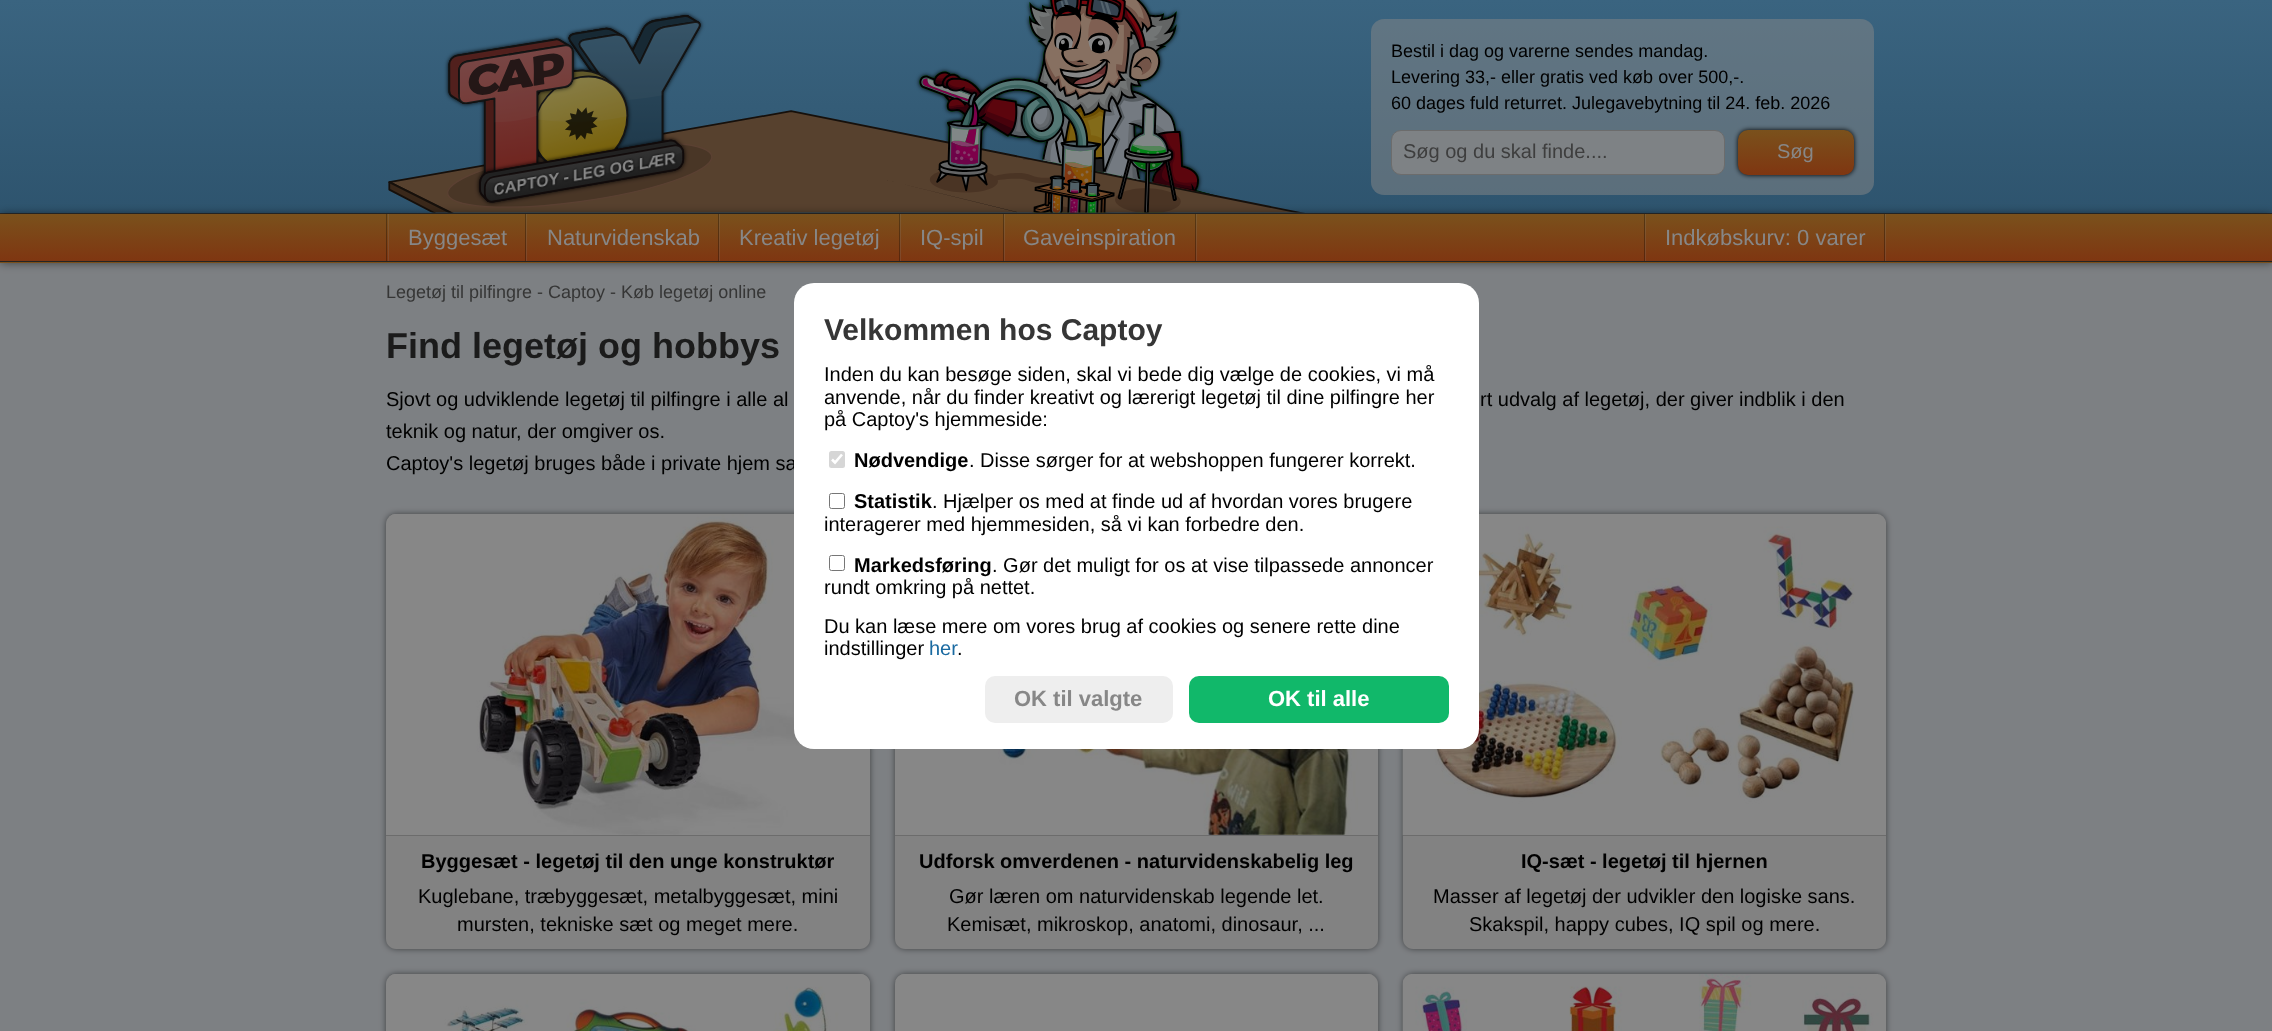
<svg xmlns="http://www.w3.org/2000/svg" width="2272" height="1031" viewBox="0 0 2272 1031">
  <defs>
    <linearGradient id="g1" gradientUnits="userSpaceOnUse" x1="1136" y1="213" x2="1136" y2="0"><stop offset="0" stop-color="#2e546e"/><stop offset="1" stop-color="#3a6480"/></linearGradient>
    <filter id="blur1" x="-50%" y="-200%" width="200%" height="500%"><feGaussianBlur stdDeviation="2.5"/></filter>
    <linearGradient id="g2" gradientUnits="userSpaceOnUse" x1="1796" y1="175" x2="1796" y2="130"><stop offset="0" stop-color="#7f3611"/><stop offset="1" stop-color="#7a511c"/></linearGradient>
    <filter id="blur2" x="-50%" y="-200%" width="200%" height="500%"><feGaussianBlur stdDeviation="5"/></filter>
    <linearGradient id="g3" gradientUnits="userSpaceOnUse" x1="1136" y1="261" x2="1136" y2="214"><stop offset="0" stop-color="#7f3611"/><stop offset="1" stop-color="#7a511c"/></linearGradient>
    <linearGradient id="g4" gradientUnits="userSpaceOnUse" x1="1136" y1="261" x2="1136" y2="214"><stop offset="0" stop-color="#59260c"/><stop offset="1" stop-color="#553914"/></linearGradient>
    <linearGradient id="g5" gradientUnits="userSpaceOnUse" x1="1136" y1="261" x2="1136" y2="214"><stop offset="0" stop-color="#804629"/><stop offset="1" stop-color="#7d5c31"/></linearGradient>
    <linearGradient id="g6" gradientUnits="userSpaceOnUse" x1="1136" y1="309" x2="1136" y2="261"><stop offset="0" stop-color="#7f3611"/><stop offset="1" stop-color="#7a511c"/></linearGradient>
    <filter id="blur3" x="-50%" y="-200%" width="200%" height="500%"><feGaussianBlur stdDeviation="3"/></filter>
  </defs>
  <rect width="100%" height="100%" fill="#ffffff"/>
  <rect x="0" y="0" width="2272" height="213" fill="url(#g1)"/>
  <rect x="0" y="213" width="2272" height="1" fill="#2d2d2d"/>
  <image x="388" y="0" width="917" height="213" href="img1.png"/>
  <rect x="1371" y="19" width="503" height="176" rx="13" fill="#878787" fill-opacity="0.5"/>
  <text x="1391" y="57" font-family="Liberation Sans" font-size="18" fill="#000000">Bestil i dag og varerne sendes mandag.</text>
  <text x="1391" y="83" font-family="Liberation Sans" font-size="18" fill="#000000">Levering 33,- eller gratis ved køb over 500,-.</text>
  <text x="1391" y="109" font-family="Liberation Sans" font-size="18" fill="#000000">60 dages fuld returret. Julegavebytning til 24. feb. 2026</text>
  <rect x="1391.5" y="130.5" width="333" height="44" rx="9.5" fill="#878787" fill-opacity="0.8" stroke="#6c6c6c"/>
  <text x="1403" y="158" font-family="Liberation Sans" font-size="20" fill="#3e3e3e">Søg og du skal finde....</text>
  <rect x="1738" y="130" width="116" height="45" rx="10" fill="#000000" filter="url(#blur1)"/>
  <rect x="1738" y="130" width="116" height="45" rx="10" fill="url(#g2)"/>
  <text x="1777" y="158" font-family="Liberation Sans" font-size="20" fill="#878787">Søg</text>
  <rect x="0" y="263" width="2272" height="768" fill="#7d8083"/>
  <rect x="0" y="214" width="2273" height="49" fill="#000000" fill-opacity="0.5" filter="url(#blur2)"/>
  <rect x="0" y="214" width="2272" height="47" fill="url(#g3)"/>
  <rect x="1884" y="214" width="1" height="47" fill="url(#g4)"/>
  <rect x="1885" y="214" width="1" height="47" fill="url(#g5)"/>
  <rect x="1644" y="214" width="1" height="47" fill="url(#g4)"/>
  <rect x="1645" y="214" width="1" height="47" fill="url(#g5)"/>
  <rect x="1195" y="214" width="1" height="47" fill="url(#g4)"/>
  <rect x="1196" y="214" width="1" height="47" fill="url(#g5)"/>
  <rect x="1003" y="214" width="1" height="47" fill="url(#g4)"/>
  <rect x="1004" y="214" width="1" height="47" fill="url(#g5)"/>
  <rect x="899" y="214" width="1" height="47" fill="url(#g4)"/>
  <rect x="900" y="214" width="1" height="47" fill="url(#g5)"/>
  <rect x="718" y="214" width="1" height="47" fill="url(#g4)"/>
  <rect x="719" y="214" width="1" height="47" fill="url(#g5)"/>
  <rect x="525" y="214" width="1" height="47" fill="url(#g4)"/>
  <rect x="526" y="214" width="1" height="47" fill="url(#g5)"/>
  <rect x="386" y="214" width="1" height="47" fill="url(#g4)"/>
  <rect x="388" y="214" width="1" height="47" fill="url(#g5)"/>
  <rect x="0" y="262" width="2272" height="1" fill="url(#g6)"/>
  <rect x="0" y="261" width="2272" height="1" fill="#242424"/>
  <text x="408" y="245" font-family="Liberation Sans" font-size="22" fill="#878787">Byggesæt</text>
  <text x="547" y="245" font-family="Liberation Sans" font-size="22" fill="#878787">Naturvidenskab</text>
  <text x="739" y="245" font-family="Liberation Sans" font-size="22" fill="#878787">Kreativ legetøj</text>
  <text x="920" y="245" font-family="Liberation Sans" font-size="22" fill="#878787">IQ-spil</text>
  <text x="1023" y="245" font-family="Liberation Sans" font-size="22" fill="#878787">Gaveinspiration</text>
  <text x="1665" y="245" font-family="Liberation Sans" font-size="22" fill="#878787">Indkøbskurv: 0 varer</text>
  <text x="386" y="298" font-family="Liberation Sans" font-size="18" fill="#363636">Legetøj til pilfingre - Captoy - Køb legetøj online</text>
  <text x="386" y="358" font-family="Liberation Sans" font-size="36" font-weight="bold" fill="#1b1b1b">Find legetøj og hobbys</text>
  <text x="386" y="406" font-family="Liberation Sans" font-size="20" fill="#000000">Sjovt og udviklende legetøj til pilfingre i alle al</text>
  <text x="1480" y="406" font-family="Liberation Sans" font-size="20" fill="#000000">rt udvalg af legetøj, der giver indblik i den</text>
  <text x="386" y="438" font-family="Liberation Sans" font-size="20" fill="#000000">teknik og natur, der omgiver os.</text>
  <text x="386" y="470" font-family="Liberation Sans" font-size="20" fill="#000000">Captoy's legetøj bruges både i private hjem sa</text>
  <rect x="386" y="514" width="484" height="435" rx="10" fill="#000000" fill-opacity="0.5" filter="url(#blur3)"/>
  <path d="M396 514H860C865.5 514 870 518.5 870 524V835H386V524C386 518.5 390.5 514 396 514Z" fill="#878787"/>
  <image x="389" y="514" width="481" height="321" href="img2.png"/>
  <path d="M386 835H870V939C870 944.5 865.5 949 860 949H396C390.5 949 386 944.5 386 939Z" fill="#828282"/>
  <rect x="386" y="835" width="484" height="1" fill="#6c6c6c"/>
  <text x="421" y="868" font-family="Liberation Sans" font-size="20" font-weight="bold" fill="#000000">Byggesæt - legetøj til den unge konstruktør</text>
  <text x="418" y="903" font-family="Liberation Sans" font-size="20" fill="#000000">Kuglebane, træbyggesæt, metalbyggesæt, mini</text>
  <text x="457" y="931" font-family="Liberation Sans" font-size="20" fill="#000000">mursten, tekniske sæt og meget mere.</text>
  <rect x="895" y="514" width="483" height="435" rx="10" fill="#000000" fill-opacity="0.5" filter="url(#blur3)"/>
  <rect x="1372" y="749" width="6" height="86" fill="#878787"/>
  <image x="895" y="749" width="477" height="86" href="img3.png"/>
  <path d="M895 835H1378V939C1378 944.5 1373.5 949 1368 949H905C899.5 949 895 944.5 895 939Z" fill="#828282"/>
  <rect x="895" y="835" width="483" height="1" fill="#6c6c6c"/>
  <text x="919" y="868" font-family="Liberation Sans" font-size="20" font-weight="bold" fill="#000000">Udforsk omverdenen - naturvidenskabelig leg</text>
  <text x="949" y="903" font-family="Liberation Sans" font-size="20" fill="#000000">Gør læren om naturvidenskab legende let.</text>
  <text x="947" y="931" font-family="Liberation Sans" font-size="20" fill="#000000">Kemisæt, mikroskop, anatomi, dinosaur, ...</text>
  <rect x="1403" y="514" width="483" height="435" rx="10" fill="#000000" fill-opacity="0.5" filter="url(#blur3)"/>
  <image x="1402" y="514" width="484" height="321" href="img4.png"/>
  <path d="M1403 835H1886V939C1886 944.5 1881.5 949 1876 949H1413C1407.5 949 1403 944.5 1403 939Z" fill="#828282"/>
  <rect x="1403" y="835" width="483" height="1" fill="#6c6c6c"/>
  <text x="1521" y="868" font-family="Liberation Sans" font-size="20" font-weight="bold" fill="#000000">IQ-sæt - legetøj til hjernen</text>
  <text x="1433" y="903" font-family="Liberation Sans" font-size="20" fill="#000000">Masser af legetøj der udvikler den logiske sans.</text>
  <text x="1469" y="931" font-family="Liberation Sans" font-size="20" fill="#000000">Skakspil, happy cubes, IQ spil og mere.</text>
  <rect x="386" y="974" width="484" height="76" rx="10" fill="#000000" fill-opacity="0.5" filter="url(#blur3)"/>
  <path d="M396 974H860C865.5 974 870 978.5 870 984V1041H386V984C386 978.5 390.5 974 396 974Z" fill="#878787"/>
  <image x="389" y="974" width="481" height="57" href="img5.png"/>
  <rect x="895" y="974" width="483" height="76" rx="10" fill="#000000" fill-opacity="0.5" filter="url(#blur3)"/>
  <path d="M905 974H1368C1373.5 974 1378 978.5 1378 984V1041H895V984C895 978.5 899.5 974 905 974Z" fill="#878787"/>
  <image x="895" y="974" width="477" height="7" href="img6.png"/>
  <rect x="1403" y="974" width="483" height="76" rx="10" fill="#000000" fill-opacity="0.5" filter="url(#blur3)"/>
  <image x="1402" y="974" width="484" height="57" href="img7.png"/>
  <rect x="794" y="283" width="685" height="466" rx="20" fill="#ffffff"/>
  <text x="824" y="340" font-family="Liberation Sans" font-size="30" font-weight="bold" fill="#363636">Velkommen hos Captoy</text>
  <text x="824" y="381" font-family="Liberation Sans" font-size="20" fill="#000000">Inden du kan besøge siden, skal vi bede dig vælge de cookies, vi må</text>
  <text x="824" y="404" font-family="Liberation Sans" font-size="20" fill="#000000">anvende, når du finder kreativt og lærerigt legetøj til dine pilfingre her</text>
  <text x="824" y="426" font-family="Liberation Sans" font-size="20" fill="#000000">på Captoy's hjemmeside:</text>
  <rect x="829" y="451" width="16" height="17" rx="2.5" fill="#d6d6d6"/>
  <path d="M832 459.5L835 462.5L842 454.5" fill="none" stroke="#ffffff" stroke-width="2.6"/>
  <text x="854" y="467" font-family="Liberation Sans" font-size="20" font-weight="bold" fill="#000000">Nødvendige</text>
  <text x="969" y="467" font-family="Liberation Sans" font-size="20" fill="#000000">. Disse sørger for at webshoppen fungerer korrekt.</text>
  <rect x="829.5" y="493.5" width="15" height="15" rx="2" fill="none" stroke="#767676"/>
  <text x="854" y="508" font-family="Liberation Sans" font-size="20" font-weight="bold" fill="#000000">Statistik</text>
  <text x="932" y="508" font-family="Liberation Sans" font-size="20" fill="#000000">. Hjælper os med at finde ud af hvordan vores brugere</text>
  <text x="824" y="531" font-family="Liberation Sans" font-size="20" fill="#000000">interagerer med hjemmesiden, så vi kan forbedre den.</text>
  <rect x="829.5" y="555.5" width="15" height="15" rx="2" fill="none" stroke="#767676"/>
  <text x="854" y="572" font-family="Liberation Sans" font-size="20" font-weight="bold" fill="#000000">Markedsføring</text>
  <text x="992" y="572" font-family="Liberation Sans" font-size="20" fill="#000000">. Gør det muligt for os at vise tilpassede annoncer</text>
  <text x="824" y="594" font-family="Liberation Sans" font-size="20" fill="#000000">rundt omkring på nettet.</text>
  <text x="824" y="633" font-family="Liberation Sans" font-size="20" fill="#000000">Du kan læse mere om vores brug af cookies og senere rette dine</text>
  <text x="824" y="655" font-family="Liberation Sans" font-size="20" fill="#000000">indstillinger</text>
  <text x="929" y="655" font-family="Liberation Sans" font-size="20" fill="#1a6aa1">her</text>
  <text x="957" y="655" font-family="Liberation Sans" font-size="20" fill="#000000">.</text>
  <rect x="985" y="676" width="188" height="47" rx="10" fill="#eeeeee"/>
  <text x="1014" y="706" font-family="Liberation Sans" font-size="22" font-weight="bold" fill="#878787">OK til valgte</text>
  <rect x="1189" y="676" width="260" height="47" rx="10" fill="#11b86a"/>
  <text x="1268" y="706" font-family="Liberation Sans" font-size="22" font-weight="bold" fill="#ffffff">OK til alle</text>
</svg>
